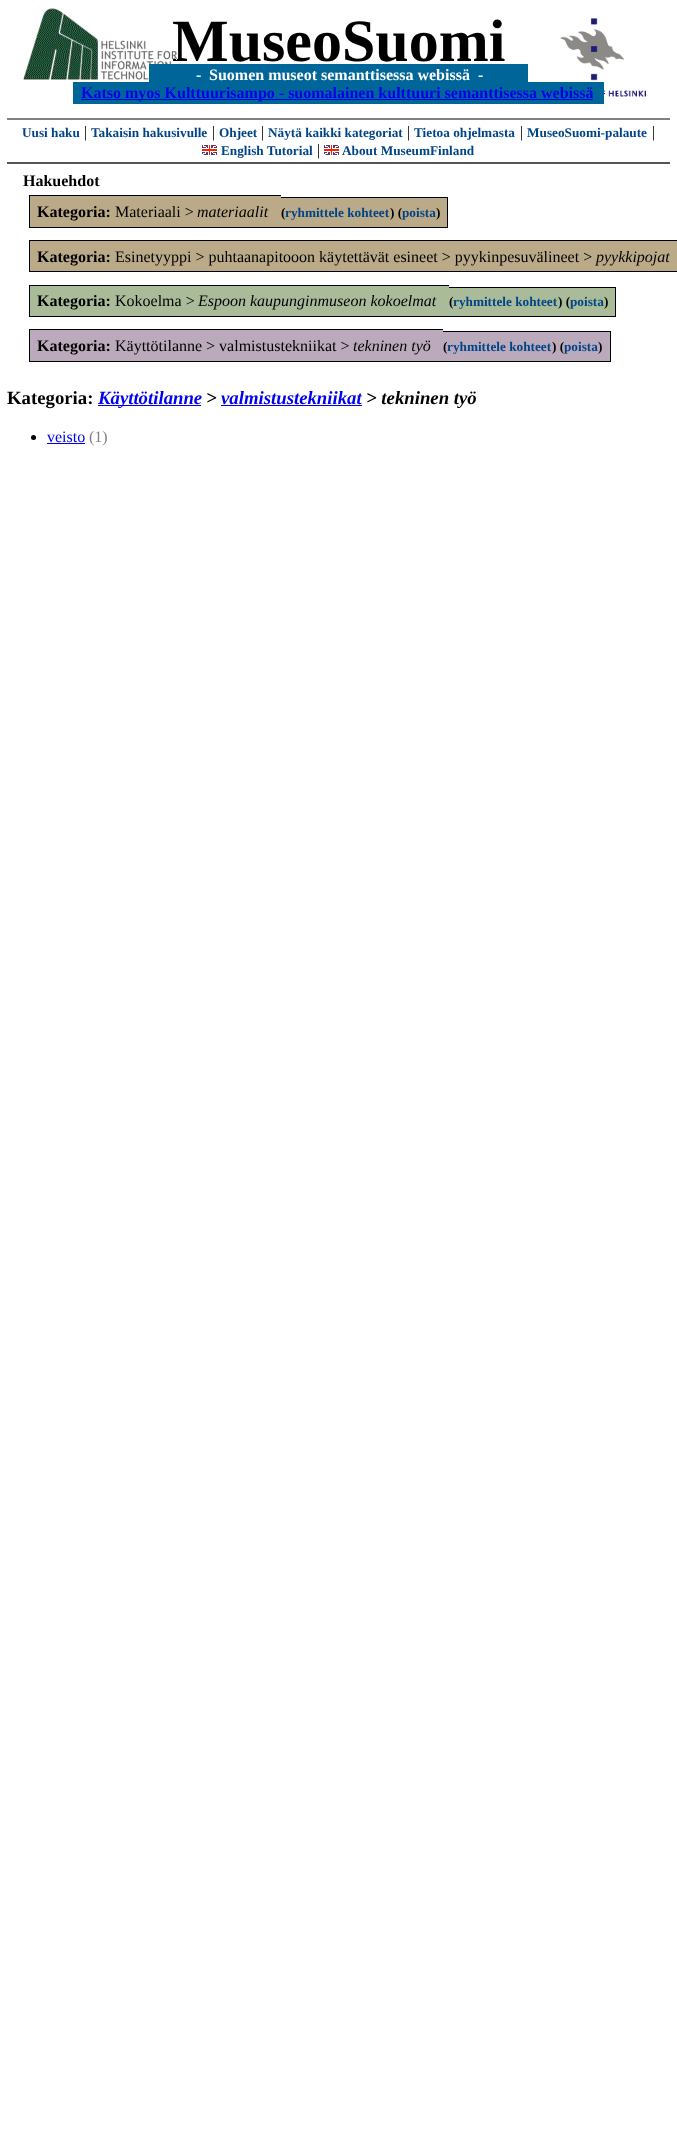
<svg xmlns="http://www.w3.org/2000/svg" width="677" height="2138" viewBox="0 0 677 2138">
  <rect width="100%" height="100%" fill="#ffffff"/>
  <text x="172" y="61" font-family="Liberation Serif" font-size="60" font-weight="bold" fill="#000000">MuseoSuomi</text>
  <image x="23" y="8" width="155" height="72" href="img1.png"/>
  <image x="560" y="18" width="86" height="79" href="img2.png"/>
  <rect x="149" y="64" width="379" height="18" fill="#006699"/>
  <text x="196" y="80" font-family="Liberation Serif" font-size="16" font-weight="bold" fill="#ffffff">-</text>
  <text x="209" y="80" font-family="Liberation Serif" font-size="16" font-weight="bold" fill="#ffffff">Suomen museot semanttisessa webissä</text>
  <text x="478" y="80" font-family="Liberation Serif" font-size="16" font-weight="bold" fill="#ffffff">-</text>
  <rect x="73" y="82" width="531" height="22" fill="#006699"/>
  <rect x="81" y="99" width="512" height="1" fill="#0000ee"/>
  <text x="81" y="98" font-family="Liberation Serif" font-size="16" font-weight="bold" fill="#0000ee">Katso myos Kulttuurisampo - suomalainen kulttuuri semanttisessa webissä</text>
  <rect x="7" y="118" width="663" height="2" fill="#808080"/>
  <rect x="7" y="162" width="663" height="2" fill="#555555"/>
  <text x="22" y="137" font-family="Liberation Serif" font-size="13.25" font-weight="bold" fill="#004488">Uusi haku</text>
  <text x="84" y="137" font-family="Liberation Serif" font-size="16" fill="#000000">|</text>
  <text x="91" y="137" font-family="Liberation Serif" font-size="13.25" font-weight="bold" fill="#004488">Takaisin hakusivulle</text>
  <text x="212" y="137" font-family="Liberation Serif" font-size="16" fill="#000000">|</text>
  <text x="219" y="137" font-family="Liberation Serif" font-size="13.25" font-weight="bold" fill="#004488">Ohjeet</text>
  <text x="261" y="137" font-family="Liberation Serif" font-size="16" fill="#000000">|</text>
  <text x="268" y="137" font-family="Liberation Serif" font-size="13.25" font-weight="bold" fill="#004488">Näytä kaikki kategoriat</text>
  <text x="407" y="137" font-family="Liberation Serif" font-size="16" fill="#000000">|</text>
  <text x="414" y="137" font-family="Liberation Serif" font-size="13.25" font-weight="bold" fill="#004488">Tietoa ohjelmasta</text>
  <text x="520" y="137" font-family="Liberation Serif" font-size="16" fill="#000000">|</text>
  <text x="527" y="137" font-family="Liberation Serif" font-size="13.25" font-weight="bold" fill="#004488">MuseoSuomi-palaute</text>
  <text x="652" y="137" font-family="Liberation Serif" font-size="16" fill="#000000">|</text>
  <image x="202" y="145" width="15" height="10" href="img3.png"/>
  <text x="221" y="155" font-family="Liberation Serif" font-size="13.25" font-weight="bold" fill="#004488">English Tutorial</text>
  <text x="317" y="155" font-family="Liberation Serif" font-size="16" fill="#000000">|</text>
  <image x="324" y="145" width="15" height="10" href="img3.png"/>
  <text x="342" y="155" font-family="Liberation Serif" font-size="13.25" font-weight="bold" fill="#004488">About MuseumFinland</text>
  <text x="23" y="186" font-family="Liberation Serif" font-size="16" font-weight="bold" fill="#000000">Hakuehdot</text>
  <rect x="30" y="196" width="251" height="31" fill="#bbaa88"/>
  <text x="37" y="217" font-family="Liberation Serif" font-size="16" font-weight="bold" fill="#000000">Kategoria:</text>
  <rect x="29" y="195" width="252" height="1" fill="#000000"/>
  <rect x="29" y="227" width="252" height="1" fill="#000000"/>
  <rect x="29" y="195" width="1" height="33" fill="#000000"/>
  <text x="115" y="217" font-family="Liberation Serif" font-size="16" fill="#000000">Materiaali &gt;</text>
  <text x="197" y="217" font-family="Liberation Serif" font-size="16" font-style="italic" fill="#000000">materiaalit</text>
  <rect x="281" y="197" width="4" height="31" fill="#bbaa88"/>
  <text x="281" y="217" font-family="Liberation Serif" font-size="13.25" font-weight="bold" fill="#000000">(</text>
  <rect x="281" y="197" width="109" height="1" fill="#000000"/>
  <rect x="281" y="227" width="109" height="1" fill="#000000"/>
  <rect x="285" y="198" width="105" height="29" fill="#bbaa88"/>
  <text x="285" y="217" font-family="Liberation Serif" font-size="13.25" font-weight="bold" fill="#004488">ryhmittele kohteet</text>
  <rect x="390" y="197" width="12" height="31" fill="#bbaa88"/>
  <rect x="390" y="197" width="58" height="1" fill="#000000"/>
  <rect x="390" y="227" width="46" height="1" fill="#000000"/>
  <text x="390" y="217" font-family="Liberation Serif" font-size="13.25" font-weight="bold" fill="#000000">) (</text>
  <rect x="402" y="198" width="45" height="29" fill="#bbaa88"/>
  <text x="402" y="217" font-family="Liberation Serif" font-size="13.25" font-weight="bold" fill="#004488">poista</text>
  <rect x="447" y="197" width="1" height="31" fill="#000000"/>
  <rect x="436" y="227" width="12" height="1" fill="#000000"/>
  <text x="436" y="217" font-family="Liberation Serif" font-size="13.25" font-weight="bold" fill="#000000">)</text>
  <rect x="30" y="241" width="640" height="30" fill="#bbaa88"/>
  <text x="37" y="262" font-family="Liberation Serif" font-size="16" font-weight="bold" fill="#000000">Kategoria:</text>
  <rect x="29" y="240" width="641" height="1" fill="#000000"/>
  <rect x="29" y="271" width="641" height="1" fill="#000000"/>
  <rect x="29" y="240" width="1" height="32" fill="#000000"/>
  <text x="115" y="262" font-family="Liberation Serif" font-size="16" fill="#000000">Esinetyyppi &gt; puhtaanapitooon käytettävät esineet &gt; pyykinpesuvälineet &gt;</text>
  <text x="596" y="262" font-family="Liberation Serif" font-size="16" font-style="italic" fill="#000000">pyykkipojat</text>
  <rect x="670" y="240" width="7" height="32" fill="#bbaa88"/>
  <rect x="670" y="240" width="7" height="1" fill="#000000"/>
  <rect x="670" y="271" width="7" height="1" fill="#000000"/>
  <rect x="30" y="286" width="419" height="30" fill="#aabb99"/>
  <text x="37" y="306" font-family="Liberation Serif" font-size="16" font-weight="bold" fill="#000000">Kategoria:</text>
  <rect x="29" y="285" width="420" height="1" fill="#000000"/>
  <rect x="29" y="316" width="420" height="1" fill="#000000"/>
  <rect x="29" y="285" width="1" height="32" fill="#000000"/>
  <text x="115" y="306" font-family="Liberation Serif" font-size="16" fill="#000000">Kokoelma &gt;</text>
  <text x="198" y="306" font-family="Liberation Serif" font-size="16" font-style="italic" fill="#000000">Espoon kaupunginmuseon kokoelmat</text>
  <rect x="449" y="287" width="4" height="30" fill="#aabb99"/>
  <text x="449" y="306" font-family="Liberation Serif" font-size="13.25" font-weight="bold" fill="#000000">(</text>
  <rect x="449" y="287" width="109" height="1" fill="#000000"/>
  <rect x="449" y="316" width="109" height="1" fill="#000000"/>
  <rect x="453" y="288" width="105" height="28" fill="#aabb99"/>
  <text x="453" y="306" font-family="Liberation Serif" font-size="13.25" font-weight="bold" fill="#004488">ryhmittele kohteet</text>
  <rect x="558" y="287" width="12" height="30" fill="#aabb99"/>
  <rect x="558" y="287" width="58" height="1" fill="#000000"/>
  <rect x="558" y="316" width="46" height="1" fill="#000000"/>
  <text x="558" y="306" font-family="Liberation Serif" font-size="13.25" font-weight="bold" fill="#000000">) (</text>
  <rect x="570" y="288" width="45" height="28" fill="#aabb99"/>
  <text x="570" y="306" font-family="Liberation Serif" font-size="13.25" font-weight="bold" fill="#004488">poista</text>
  <rect x="615" y="287" width="1" height="30" fill="#000000"/>
  <rect x="604" y="316" width="12" height="1" fill="#000000"/>
  <text x="604" y="306" font-family="Liberation Serif" font-size="13.25" font-weight="bold" fill="#000000">)</text>
  <rect x="30" y="330" width="413" height="31" fill="#bbaabb"/>
  <text x="37" y="351" font-family="Liberation Serif" font-size="16" font-weight="bold" fill="#000000">Kategoria:</text>
  <rect x="29" y="329" width="414" height="1" fill="#000000"/>
  <rect x="29" y="361" width="414" height="1" fill="#000000"/>
  <rect x="29" y="329" width="1" height="33" fill="#000000"/>
  <text x="115" y="351" font-family="Liberation Serif" font-size="16" fill="#000000">Käyttötilanne &gt; valmistustekniikat &gt;</text>
  <text x="353" y="351" font-family="Liberation Serif" font-size="16" font-style="italic" fill="#000000">tekninen työ</text>
  <rect x="443" y="331" width="4" height="31" fill="#bbaabb"/>
  <text x="443" y="351" font-family="Liberation Serif" font-size="13.25" font-weight="bold" fill="#000000">(</text>
  <rect x="443" y="331" width="109" height="1" fill="#000000"/>
  <rect x="443" y="361" width="109" height="1" fill="#000000"/>
  <rect x="447" y="332" width="105" height="29" fill="#bbaabb"/>
  <rect x="552" y="331" width="12" height="31" fill="#bbaabb"/>
  <text x="447" y="351" font-family="Liberation Serif" font-size="13.25" font-weight="bold" fill="#004488">ryhmittele kohteet</text>
  <rect x="552" y="331" width="59" height="1" fill="#000000"/>
  <rect x="552" y="361" width="46" height="1" fill="#000000"/>
  <text x="552" y="351" font-family="Liberation Serif" font-size="13.25" font-weight="bold" fill="#000000">) (</text>
  <rect x="564" y="332" width="46" height="29" fill="#bbaabb"/>
  <text x="564" y="351" font-family="Liberation Serif" font-size="13.25" font-weight="bold" fill="#004488">poista</text>
  <rect x="610" y="331" width="1" height="31" fill="#000000"/>
  <rect x="598" y="361" width="13" height="1" fill="#000000"/>
  <text x="598" y="351" font-family="Liberation Serif" font-size="13.25" font-weight="bold" fill="#000000">)</text>
  <text x="7" y="404" font-family="Liberation Serif" font-size="18.75" font-weight="bold" fill="#000000">Kategoria:</text>
  <rect x="98" y="405" width="103" height="1" fill="#0000ee"/>
  <text x="98" y="404" font-family="Liberation Serif" font-size="18.75" font-weight="bold" font-style="italic" fill="#0000ee">Käyttötilanne</text>
  <text x="206" y="404" font-family="Liberation Serif" font-size="18.75" font-weight="bold" font-style="italic" fill="#000000">&gt;</text>
  <text x="221" y="404" font-family="Liberation Serif" font-size="18.75" font-weight="bold" font-style="italic" fill="#0000ee">valmistustekniikat</text>
  <rect x="221" y="405" width="141" height="1" fill="#0000ee"/>
  <text x="366" y="404" font-family="Liberation Serif" font-size="18.75" font-weight="bold" font-style="italic" fill="#000000">&gt; tekninen työ</text>
  <circle cx="33.5" cy="437.5" r="2.5" fill="#000000"/>
  <text x="47" y="442" font-family="Liberation Serif" font-size="16" fill="#0000ee">veisto</text>
  <rect x="47" y="443" width="38" height="1" fill="#0000ee"/>
  <text x="89" y="442" font-family="Liberation Serif" font-size="16" fill="#808080">(1)</text>
</svg>
